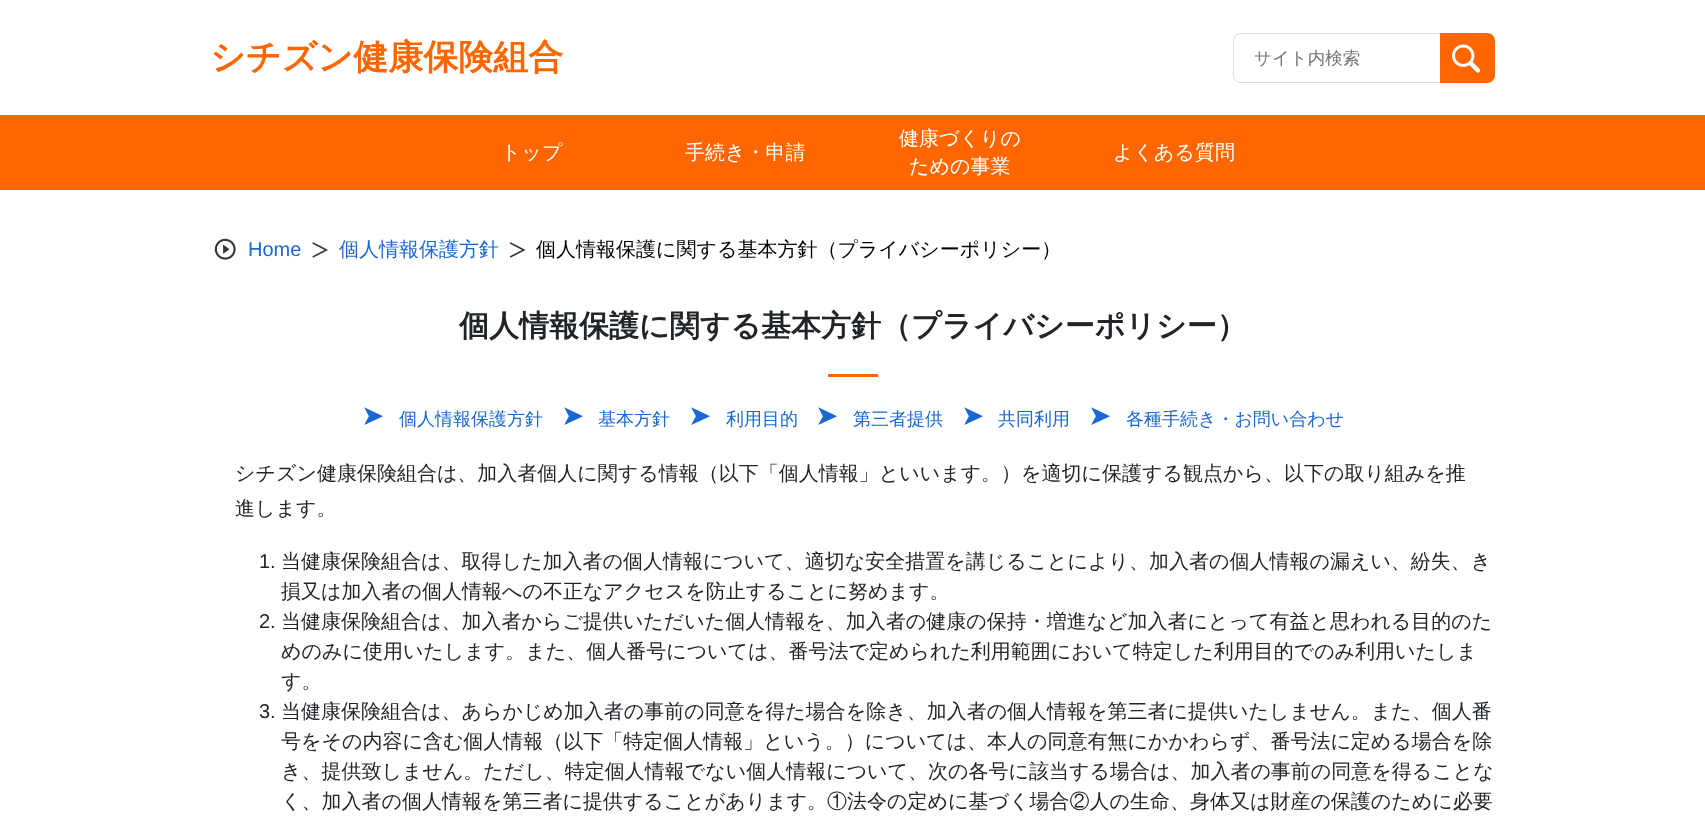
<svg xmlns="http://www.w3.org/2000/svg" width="1705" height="823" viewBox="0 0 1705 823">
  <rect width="100%" height="100%" fill="#ffffff"/>
  <text x="210" y="69" font-family="WenQuanYi Zen Hei" font-size="35" font-weight="bold" fill="#ff6600">シチズン健康保険組合</text>
  <path d="M1241 33.5H1440.5V82.5H1241C1237 82.5 1233.5 79 1233.5 75V41C1233.5 37 1237 33.5 1241 33.5Z" fill="none" stroke="#dddddd"/>
  <text x="1254" y="64" font-family="WenQuanYi Zen Hei" font-size="17.5" font-weight="500" fill="#737373">サイト内検索</text>
  <path d="M1440 33H1487C1491.5 33 1495 36.5 1495 41V75C1495 79.5 1491.5 83 1487 83H1440Z" fill="#ff6600"/>
  <image x="1452" y="44" width="29" height="29" href="img1.png"/>
  <rect x="0" y="115" width="1705" height="75" fill="#ff6600"/>
  <text x="501" y="159" font-family="WenQuanYi Zen Hei" font-size="20" font-weight="500" fill="#ffffff">トップ</text>
  <text x="685" y="159" font-family="WenQuanYi Zen Hei" font-size="20" font-weight="500" fill="#ffffff">手続き・申請</text>
  <text x="899" y="145" font-family="WenQuanYi Zen Hei" font-size="20" font-weight="500" fill="#ffffff">健康づくりの</text>
  <text x="909" y="173" font-family="WenQuanYi Zen Hei" font-size="20" font-weight="500" fill="#ffffff">ための事業</text>
  <text x="1113" y="159" font-family="WenQuanYi Zen Hei" font-size="20" font-weight="500" fill="#ffffff">よくある質問</text>
  <image x="214" y="238" width="22" height="22" href="img2.png"/>
  <text x="248" y="256" font-family="Liberation Sans" font-size="20" fill="#1967d2">Home</text>
  <image x="312" y="242" width="16" height="16" href="img3.png"/>
  <text x="339" y="256" font-family="WenQuanYi Zen Hei" font-size="20" font-weight="500" fill="#1967d2">個人情報保護方針</text>
  <image x="509" y="242" width="17" height="16" href="img4.png"/>
  <text x="536" y="256" font-family="WenQuanYi Zen Hei" font-size="20" font-weight="500" fill="#000000">個人情報保護に関する基本方針（プライバシーポリシー）</text>
  <text x="459" y="336" font-family="WenQuanYi Zen Hei" font-size="30" font-weight="bold" fill="#212529">個人情報保護に関する基本方針（プライバシーポリシー）</text>
  <rect x="828" y="374" width="50" height="3" fill="#ff6600"/>
  <text x="361" y="425" font-family="DejaVu Sans" font-size="28" fill="#1967d2">➤</text>
  <text x="399" y="425" font-family="WenQuanYi Zen Hei" font-size="18" font-weight="500" fill="#1967d2">個人情報保護方針</text>
  <text x="561" y="425" font-family="DejaVu Sans" font-size="28" fill="#1967d2">➤</text>
  <text x="598" y="425" font-family="WenQuanYi Zen Hei" font-size="18" font-weight="500" fill="#1967d2">基本方針</text>
  <text x="688" y="425" font-family="DejaVu Sans" font-size="28" fill="#1967d2">➤</text>
  <text x="726" y="425" font-family="WenQuanYi Zen Hei" font-size="18" font-weight="500" fill="#1967d2">利用目的</text>
  <text x="815" y="425" font-family="DejaVu Sans" font-size="28" fill="#1967d2">➤</text>
  <text x="853" y="425" font-family="WenQuanYi Zen Hei" font-size="18" font-weight="500" fill="#1967d2">第三者提供</text>
  <text x="961" y="425" font-family="DejaVu Sans" font-size="28" fill="#1967d2">➤</text>
  <text x="998" y="425" font-family="WenQuanYi Zen Hei" font-size="18" font-weight="500" fill="#1967d2">共同利用</text>
  <text x="1088" y="425" font-family="DejaVu Sans" font-size="28" fill="#1967d2">➤</text>
  <text x="1126" y="425" font-family="WenQuanYi Zen Hei" font-size="18" font-weight="500" fill="#1967d2">各種手続き・お問い合わせ</text>
  <text x="235" y="480" font-family="WenQuanYi Zen Hei" font-size="20" font-weight="500" fill="#212529">シチズン健康保険組合は、加入者個人に関する情報（以下「個人情報」といいます。）を適切に保護する観点から、以下の取り組みを推</text>
  <text x="235" y="515" font-family="WenQuanYi Zen Hei" font-size="20" font-weight="500" fill="#212529">進します。</text>
  <text x="259" y="568" font-family="Liberation Sans" font-size="20" fill="#212529">1.</text>
  <text x="281" y="568" font-family="WenQuanYi Zen Hei" font-size="20" font-weight="500" fill="#212529">当健康保険組合は、取得した加入者の個人情報について、適切な安全措置を講じることにより、加入者の個人情報の漏えい、紛失、き</text>
  <text x="281" y="598" font-family="WenQuanYi Zen Hei" font-size="20" font-weight="500" fill="#212529">損又は加入者の個人情報への不正なアクセスを防止することに努めます。</text>
  <text x="259" y="628" font-family="Liberation Sans" font-size="20" fill="#212529">2.</text>
  <text x="281" y="628" font-family="WenQuanYi Zen Hei" font-size="20" font-weight="500" fill="#212529">当健康保険組合は、加入者からご提供いただいた個人情報を、加入者の健康の保持・増進など加入者にとって有益と思われる目的のた</text>
  <text x="281" y="658" font-family="WenQuanYi Zen Hei" font-size="20" font-weight="500" fill="#212529">めのみに使用いたします。また、個人番号については、番号法で定められた利用範囲において特定した利用目的でのみ利用いたしま</text>
  <text x="281" y="688" font-family="WenQuanYi Zen Hei" font-size="20" font-weight="500" fill="#212529">す。</text>
  <text x="259" y="718" font-family="Liberation Sans" font-size="20" fill="#212529">3.</text>
  <text x="281" y="718" font-family="WenQuanYi Zen Hei" font-size="20" font-weight="500" fill="#212529">当健康保険組合は、あらかじめ加入者の事前の同意を得た場合を除き、加入者の個人情報を第三者に提供いたしません。また、個人番</text>
  <text x="281" y="748" font-family="WenQuanYi Zen Hei" font-size="20" font-weight="500" fill="#212529">号をその内容に含む個人情報（以下「特定個人情報」という。）については、本人の同意有無にかかわらず、番号法に定める場合を除</text>
  <text x="281" y="778" font-family="WenQuanYi Zen Hei" font-size="20" font-weight="500" fill="#212529">き、提供致しません。ただし、特定個人情報でない個人情報について、次の各号に該当する場合は、加入者の事前の同意を得ることな</text>
  <text x="281" y="808" font-family="WenQuanYi Zen Hei" font-size="20" font-weight="500" fill="#212529">く、加入者の個人情報を第三者に提供することがあります。①法令の定めに基づく場合②人の生命、身体又は財産の保護のために必要</text>
</svg>
